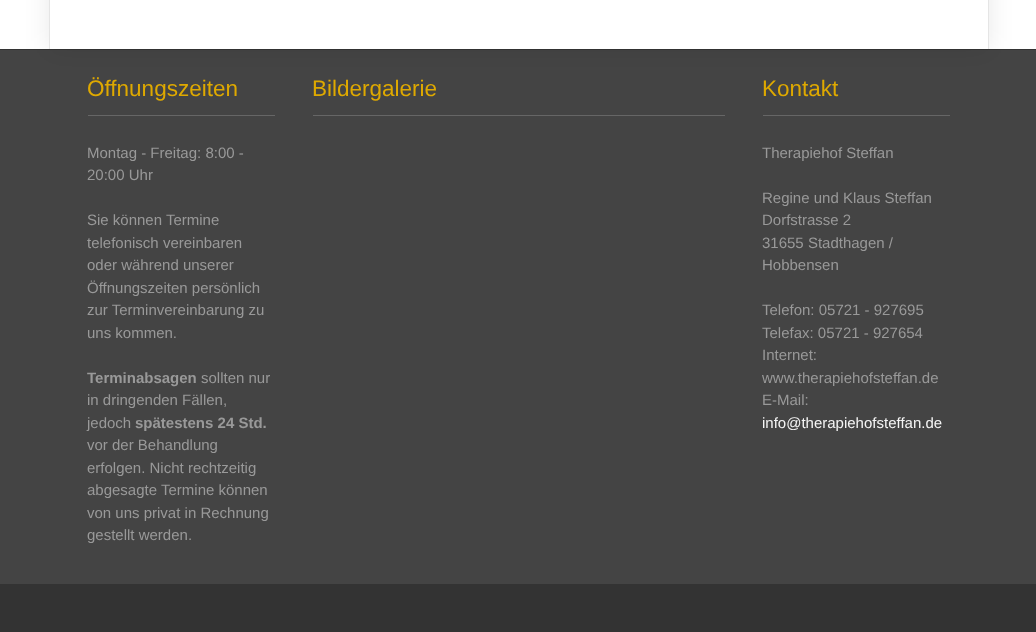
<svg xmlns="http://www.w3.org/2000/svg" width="1036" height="632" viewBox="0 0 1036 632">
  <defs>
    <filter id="blur1" x="-50%" y="-200%" width="200%" height="500%"><feGaussianBlur stdDeviation="12.5"/></filter>
  </defs>
  <rect width="100%" height="100%" fill="#ffffff"/>
  <rect x="0" y="50" width="1036" height="534" fill="#444444"/>
  <rect x="0" y="49" width="1036" height="1" fill="#333333"/>
  <rect x="49" y="-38" width="940" height="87" fill="#000000" fill-opacity="0.09" filter="url(#blur1)"/>
  <rect x="50" y="0" width="938" height="49" fill="#ffffff"/>
  <rect x="988" y="0" width="1" height="49" fill="#e5e5e5"/>
  <rect x="49" y="0" width="1" height="49" fill="#e5e5e5"/>
  <rect x="88" y="115" width="187" height="1" fill="#666666"/>
  <text x="87" y="96" font-family="Liberation Sans" font-size="22.5" fill="#dfa900">Öffnungszeiten</text>
  <text x="87" y="158" font-family="Liberation Sans" font-size="15" fill="#999999">Montag - Freitag: 8:00 -</text>
  <text x="87" y="180" font-family="Liberation Sans" font-size="15" fill="#999999">20:00 Uhr</text>
  <text x="87" y="225" font-family="Liberation Sans" font-size="15" fill="#999999">Sie können Termine</text>
  <text x="87" y="248" font-family="Liberation Sans" font-size="15" fill="#999999">telefonisch vereinbaren</text>
  <text x="87" y="270" font-family="Liberation Sans" font-size="15" fill="#999999">oder während unserer</text>
  <text x="87" y="293" font-family="Liberation Sans" font-size="15" fill="#999999">Öffnungszeiten persönlich</text>
  <text x="87" y="315" font-family="Liberation Sans" font-size="15" fill="#999999">zur Terminvereinbarung zu</text>
  <text x="87" y="338" font-family="Liberation Sans" font-size="15" fill="#999999">uns kommen.</text>
  <text x="87" y="383" font-family="Liberation Sans" font-size="15" font-weight="bold" fill="#999999">Terminabsagen</text>
  <text x="201" y="383" font-family="Liberation Sans" font-size="15" fill="#999999">sollten nur</text>
  <text x="87" y="405" font-family="Liberation Sans" font-size="15" fill="#999999">in dringenden Fällen,</text>
  <text x="87" y="428" font-family="Liberation Sans" font-size="15" fill="#999999">jedoch</text>
  <text x="135" y="428" font-family="Liberation Sans" font-size="15" font-weight="bold" fill="#999999">spätestens 24 Std.</text>
  <text x="87" y="450" font-family="Liberation Sans" font-size="15" fill="#999999">vor der Behandlung</text>
  <text x="87" y="473" font-family="Liberation Sans" font-size="15" fill="#999999">erfolgen. Nicht rechtzeitig</text>
  <text x="87" y="495" font-family="Liberation Sans" font-size="15" fill="#999999">abgesagte Termine können</text>
  <text x="87" y="518" font-family="Liberation Sans" font-size="15" fill="#999999">von uns privat in Rechnung</text>
  <text x="87" y="540" font-family="Liberation Sans" font-size="15" fill="#999999">gestellt werden.</text>
  <rect x="313" y="115" width="412" height="1" fill="#666666"/>
  <text x="312" y="96" font-family="Liberation Sans" font-size="22.5" fill="#dfa900">Bildergalerie</text>
  <rect x="763" y="115" width="187" height="1" fill="#666666"/>
  <text x="762" y="96" font-family="Liberation Sans" font-size="22.5" fill="#dfa900">Kontakt</text>
  <text x="762" y="158" font-family="Liberation Sans" font-size="15" fill="#999999">Therapiehof Steffan</text>
  <text x="762" y="203" font-family="Liberation Sans" font-size="15" fill="#999999">Regine und Klaus Steffan</text>
  <text x="762" y="225" font-family="Liberation Sans" font-size="15" fill="#999999">Dorfstrasse 2</text>
  <text x="762" y="248" font-family="Liberation Sans" font-size="15" fill="#999999">31655 Stadthagen /</text>
  <text x="762" y="270" font-family="Liberation Sans" font-size="15" fill="#999999">Hobbensen</text>
  <text x="762" y="315" font-family="Liberation Sans" font-size="15" fill="#999999">Telefon: 05721 - 927695</text>
  <text x="762" y="338" font-family="Liberation Sans" font-size="15" fill="#999999">Telefax: 05721 - 927654</text>
  <text x="762" y="360" font-family="Liberation Sans" font-size="15" fill="#999999">Internet:</text>
  <text x="762" y="383" font-family="Liberation Sans" font-size="15" fill="#999999">www.therapiehofsteffan.de</text>
  <text x="762" y="405" font-family="Liberation Sans" font-size="15" fill="#999999">E-Mail:</text>
  <text x="762" y="428" font-family="Liberation Sans" font-size="15" fill="#f5f5f5">info@therapiehofsteffan.de</text>
  <rect x="0" y="584" width="1036" height="48" fill="#333333"/>
</svg>
